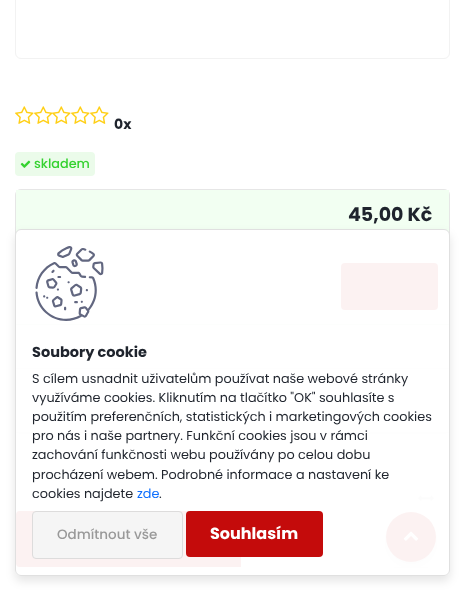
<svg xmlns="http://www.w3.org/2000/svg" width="465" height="591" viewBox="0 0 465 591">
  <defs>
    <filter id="blur1" x="-50%" y="-200%" width="200%" height="500%"><feGaussianBlur stdDeviation="5"/></filter>
    <clipPath id="clip1"><path d="M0 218H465V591H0ZM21 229H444C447.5 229 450 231.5 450 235V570C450 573.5 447.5 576 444 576H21C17.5 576 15 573.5 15 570V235C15 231.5 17.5 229 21 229Z" clip-rule="evenodd"/></clipPath>
  </defs>
  <rect width="100%" height="100%" fill="#ffffff"/>
  <rect x="15.5" y="-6.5" width="434" height="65" rx="5.5" fill="none" stroke="#f2f2f2"/>
  <image x="15" y="106" width="19" height="18" href="img1.png"/>
  <image x="34" y="106" width="19" height="18" href="img1.png"/>
  <image x="52" y="106" width="19" height="18" href="img2.png"/>
  <image x="71" y="106" width="19" height="18" href="img1.png"/>
  <image x="90" y="106" width="19" height="18" href="img1.png"/>
  <text x="114" y="129" font-family="Poppins" font-size="14" font-weight="bold" fill="#1f242d">0x</text>
  <rect x="15" y="152" width="80" height="24" rx="4" fill="#ebfbea"/>
  <image x="20" y="160" width="11" height="8" href="img3.png"/>
  <text x="34" y="168" font-family="Poppins" font-size="12.8" font-weight="500" fill="#34d22f">skladem</text>
  <rect x="15.5" y="189.5" width="434" height="244" rx="5.5" fill="none" stroke="#e6e6e6"/>
  <rect x="16" y="429" width="433" height="3" fill="#ffffff"/>
  <rect x="16" y="190" width="433" height="134" fill="#f2fff2"/>
  <text x="348" y="221" font-family="Poppins" font-size="19" font-weight="bold" fill="#1f242d">45,00 Kč</text>
  <rect x="16" y="324" width="433" height="1" fill="#dae6da"/>
  <rect x="199" y="262" width="106" height="49" rx="2" fill="#ffffff" stroke="#f8f8f8" stroke-width="4"/>
  <rect x="341" y="263" width="97" height="47" rx="4" fill="#c40b0b"/>
  <rect x="16" y="368" width="433" height="1" fill="#e6e6e6"/>
  <rect x="16" y="432" width="433" height="1" fill="#e6e6e6"/>
  <image x="418" y="495" width="16" height="6" href="img4.png"/>
  <rect x="15.5" y="510.5" width="434" height="57" rx="3.5" fill="none" stroke="#f2f2f2"/>
  <path d="M19 511H241V567H19C17.5 567 16 565.5 16 564V514C16 512.5 17.5 511 19 511Z" fill="#c40b0b"/>
  <rect x="240" y="557" width="1" height="10" fill="#ba0a0a"/>
  <rect x="369" y="511" width="1" height="56" fill="#f2f2f2"/>
  <rect x="386" y="517" width="50" height="50" rx="25" fill="#000000" fill-opacity="0.2" filter="url(#blur1)"/>
  <circle cx="411" cy="537" r="25" fill="#c40b0b"/>
  <image x="403" y="531" width="16" height="10" href="img6.png"/>
  <g clip-path="url(#clip1)">
    <rect x="15" y="234" width="435" height="347" rx="6" fill="#000000" fill-opacity="0.1" filter="url(#blur1)"/>
  </g>
  <rect x="15.5" y="229.5" width="434" height="346" rx="5.5" fill="#ffffff" fill-opacity="0.95" stroke="#e0e0e0"/>
  <image x="35" y="246" width="69" height="75" href="img5.png"/>
  <text x="32" y="357" font-family="Poppins" font-size="14.5" font-weight="bold" fill="#1f242d">Soubory cookie</text>
  <text x="32" y="383" font-family="Poppins" font-size="12.8" fill="#1f242d">S cílem usnadnit uživatelům používat naše webové stránky</text>
  <text x="32" y="402" font-family="Poppins" font-size="12.8" fill="#1f242d">využíváme cookies. Kliknutím na tlačítko "OK" souhlasíte s</text>
  <text x="32" y="421" font-family="Poppins" font-size="12.8" fill="#1f242d">použitím preferenčních, statistických i marketingových cookies</text>
  <text x="32" y="440" font-family="Poppins" font-size="12.8" fill="#1f242d">pro nás i naše partnery. Funkční cookies jsou v rámci</text>
  <text x="32" y="459" font-family="Poppins" font-size="12.8" fill="#1f242d">zachování funkčnosti webu používány po celou dobu</text>
  <text x="32" y="479" font-family="Poppins" font-size="12.8" fill="#1f242d">procházení webem. Podrobné informace a nastavení ke</text>
  <text x="32" y="498" font-family="Poppins" font-size="12.8" fill="#1f242d">cookies najdete</text>
  <text x="137" y="498" font-family="Poppins" font-size="12.8" fill="#0d6efd">zde</text>
  <text x="159" y="498" font-family="Poppins" font-size="12.8" fill="#1f242d">.</text>
  <rect x="32.5" y="511.5" width="150" height="47" rx="3.5" fill="#f5f5f5" stroke="#dddcdc"/>
  <text x="57" y="539" font-family="Poppins" font-size="13.5" font-weight="500" fill="#999999">Odmítnout vše</text>
  <rect x="186" y="511" width="137" height="46" rx="4" fill="#c40b0b"/>
  <text x="210" y="539" font-family="Poppins" font-size="16" font-weight="bold" fill="#ffffff">Souhlasím</text>
</svg>
